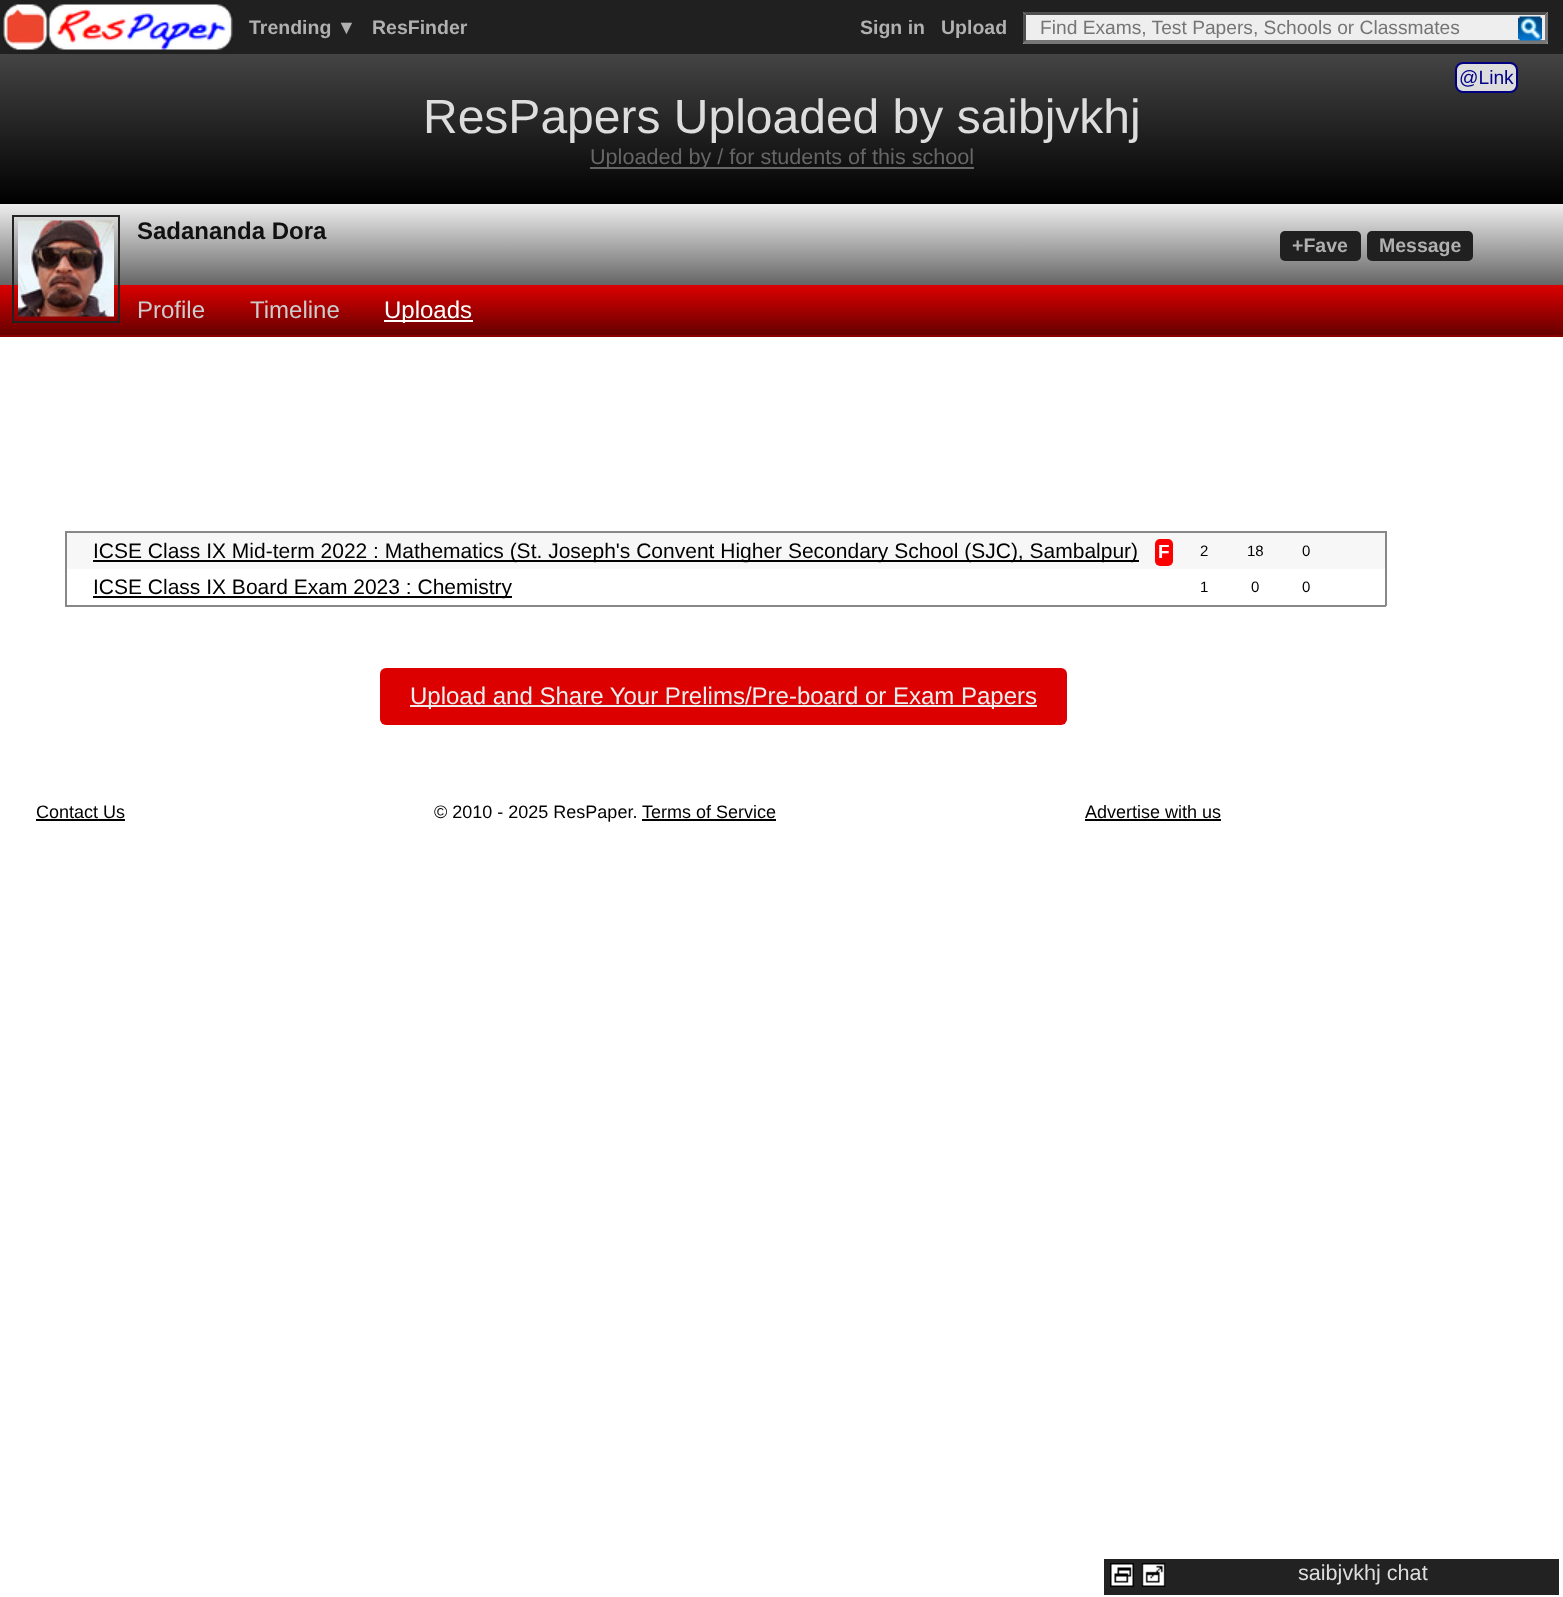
<svg xmlns="http://www.w3.org/2000/svg" width="1563" height="1597" viewBox="0 0 1563 1597">
  <defs>
    <linearGradient id="g1" gradientUnits="userSpaceOnUse" x1="782" y1="54" x2="782" y2="204"><stop offset="0" stop-color="#444444"/><stop offset="1" stop-color="#000000"/></linearGradient>
    <linearGradient id="g2" gradientUnits="userSpaceOnUse" x1="782" y1="204" x2="782" y2="285"><stop offset="0" stop-color="#eeeeee"/><stop offset="1" stop-color="#666666"/></linearGradient>
    <linearGradient id="g3" gradientUnits="userSpaceOnUse" x1="782" y1="285" x2="782" y2="335"><stop offset="0" stop-color="#dd0000"/><stop offset="1" stop-color="#660000"/></linearGradient>
  </defs>
  <rect width="100%" height="100%" fill="#ffffff"/>
  <rect x="0" y="0" width="1563" height="54" fill="#202020"/>
  <image x="3" y="4" width="230" height="46" href="img1.png"/>
  <text x="249" y="34" font-family="Liberation Sans" font-size="19.5" font-weight="bold" fill="#b0b0b0">Trending ▼</text>
  <text x="372" y="34" font-family="Liberation Sans" font-size="19.5" font-weight="bold" fill="#b0b0b0">ResFinder</text>
  <text x="860" y="34" font-family="Liberation Sans" font-size="19.5" font-weight="bold" fill="#b0b0b0">Sign in</text>
  <text x="941" y="34" font-family="Liberation Sans" font-size="19.5" font-weight="bold" fill="#b0b0b0">Upload</text>
  <rect x="1023" y="12" width="525" height="32" fill="#eeeeee"/>
  <path d="M1023 12H1548L1545 15H1026Z" fill="#4f4f4f"/>
  <path d="M1548 12V43.5L1545 40.5V15Z" fill="#767676"/>
  <path d="M1548 44H1023L1026 40H1545Z" fill="#767676"/>
  <path d="M1023 43.5V12L1026 15V40.5Z" fill="#4f4f4f"/>
  <text x="1040" y="34" font-family="Liberation Sans" font-size="19.2" fill="#757575">Find Exams, Test Papers, Schools or Classmates</text>
  <image x="1518" y="16" width="24" height="25" href="img2.png"/>
  <rect x="0" y="54" width="1563" height="150" fill="url(#g1)"/>
  <rect x="1456" y="63" width="61" height="29" rx="7" fill="#dddddd" stroke="#000080" stroke-width="2"/>
  <text x="1459" y="84" font-family="Liberation Sans" font-size="19.2" fill="#000088">@Link</text>
  <text x="423" y="133" font-family="Liberation Sans" font-size="48" fill="#dddddd">ResPapers Uploaded by saibjvkhj</text>
  <rect x="590" y="167" width="384" height="2" fill="#666666"/>
  <text x="590" y="164" font-family="Liberation Sans" font-size="21.6" fill="#666666">Uploaded by / for students of this school</text>
  <rect x="0" y="204" width="1563" height="81" fill="url(#g2)"/>
  <rect x="0" y="285" width="1563" height="50" fill="url(#g3)"/>
  <rect x="13" y="216" width="106" height="106" fill="none" stroke="#222222" stroke-width="2"/>
  <image x="18" y="220" width="96" height="97" href="img3.png"/>
  <text x="137" y="239" font-family="Liberation Sans" font-size="24" font-weight="bold" fill="#111111">Sadananda Dora</text>
  <rect x="1280" y="231" width="81" height="30" rx="5" fill="#202020"/>
  <text x="1292" y="252" font-family="Liberation Sans" font-size="19.5" font-weight="bold" fill="#b0b0b0">+Fave</text>
  <rect x="1367" y="231" width="106" height="30" rx="5" fill="#202020"/>
  <text x="1379" y="252" font-family="Liberation Sans" font-size="19.5" font-weight="bold" fill="#b0b0b0">Message</text>
  <rect x="0" y="335" width="1563" height="2" fill="#880000"/>
  <text x="137" y="318" font-family="Liberation Sans" font-size="24" fill="#cccccc">Profile</text>
  <text x="250" y="318" font-family="Liberation Sans" font-size="24" fill="#cccccc">Timeline</text>
  <rect x="384" y="320" width="89" height="2" fill="#ffffff"/>
  <text x="384" y="318" font-family="Liberation Sans" font-size="24" fill="#ffffff">Uploads</text>
  <rect x="67" y="533" width="1318" height="36" fill="#f7f7f7"/>
  <rect x="65" y="531" width="1321" height="2" fill="#888888"/>
  <rect x="1385" y="531" width="2" height="75" fill="#888888"/>
  <rect x="65" y="531" width="2" height="38" fill="#888888"/>
  <rect x="93" y="560" width="1046" height="2" fill="#000000"/>
  <text x="93" y="558" font-family="Liberation Sans" font-size="21" fill="#000000">ICSE Class IX Mid-term 2022 : Mathematics (St. Joseph's Convent Higher Secondary School (SJC), Sambalpur)</text>
  <rect x="1155" y="539" width="18" height="27" rx="5" fill="#ff0000"/>
  <text x="1158" y="558" font-family="Liberation Sans" font-size="19" font-weight="bold" fill="#ffffff">F</text>
  <text x="1200" y="556" font-family="Liberation Sans" font-size="15" fill="#000000">2</text>
  <text x="1247" y="556" font-family="Liberation Sans" font-size="15" fill="#000000">18</text>
  <text x="1302" y="556" font-family="Liberation Sans" font-size="15" fill="#000000">0</text>
  <rect x="65" y="605" width="1321" height="2" fill="#888888"/>
  <rect x="65" y="569" width="2" height="37" fill="#888888"/>
  <rect x="93" y="596" width="419" height="2" fill="#000000"/>
  <text x="93" y="594" font-family="Liberation Sans" font-size="21" fill="#000000">ICSE Class IX Board Exam 2023 : Chemistry</text>
  <text x="1200" y="592" font-family="Liberation Sans" font-size="15" fill="#000000">1</text>
  <text x="1251" y="592" font-family="Liberation Sans" font-size="15" fill="#000000">0</text>
  <text x="1302" y="592" font-family="Liberation Sans" font-size="15" fill="#000000">0</text>
  <rect x="380" y="668" width="687" height="57" rx="6" fill="#dd0000"/>
  <rect x="410" y="705" width="627" height="2" fill="#eeeeee"/>
  <text x="410" y="704" font-family="Liberation Sans" font-size="24" fill="#eeeeee">Upload and Share Your Prelims/Pre-board or Exam Papers</text>
  <text x="36" y="818" font-family="Liberation Sans" font-size="18" fill="#000000">Contact Us</text>
  <rect x="36" y="819" width="89" height="2" fill="#000000"/>
  <text x="434" y="818" font-family="Liberation Sans" font-size="18" fill="#000000">© 2010 - 2025 ResPaper.</text>
  <text x="642" y="818" font-family="Liberation Sans" font-size="18" fill="#000000">Terms of Service</text>
  <rect x="642" y="819" width="134" height="2" fill="#000000"/>
  <text x="1085" y="818" font-family="Liberation Sans" font-size="18" fill="#000000">Advertise with us</text>
  <rect x="1085" y="819" width="136" height="2" fill="#000000"/>
  <rect x="1104" y="1559" width="455" height="36" fill="#222222"/>
  <image x="1110" y="1563" width="24" height="24" href="img4.png"/>
  <image x="1141" y="1563" width="25" height="24" href="img5.png"/>
  <text x="1298" y="1580" font-family="Liberation Sans" font-size="21.6" fill="#dddddd">saibjvkhj chat</text>
</svg>
